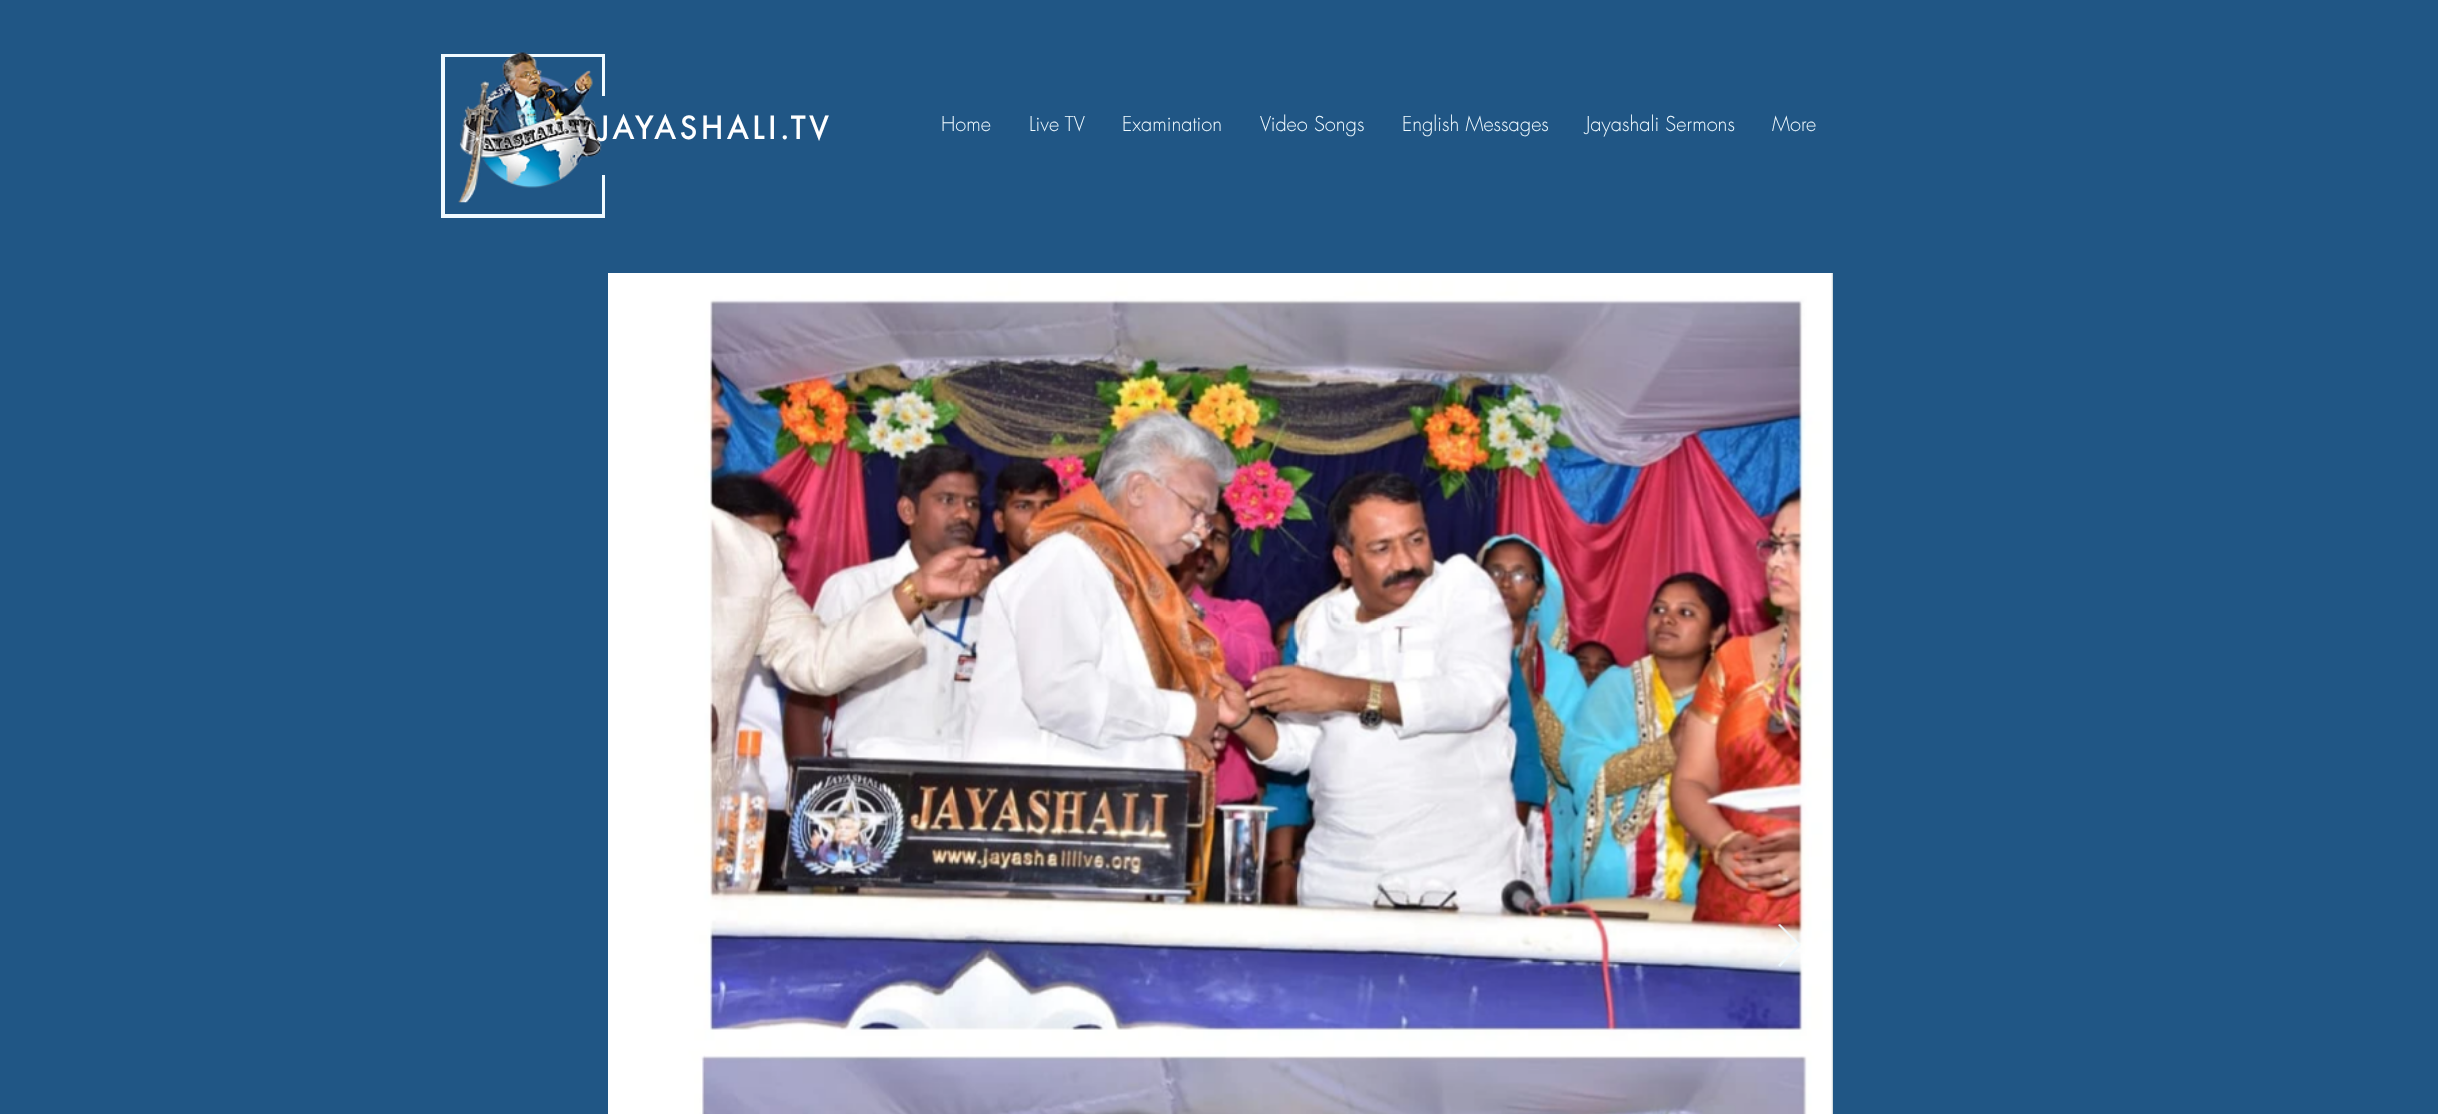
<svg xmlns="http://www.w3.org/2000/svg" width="2438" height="1114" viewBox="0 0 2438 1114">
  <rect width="100%" height="100%" fill="#205685"/>
  <path d="M602 96V57H445V214H602V175H605V218H441V54H605V96Z" fill="#f0faff"/>
  <image x="458" y="51" width="144" height="152" href="img1.png"/>
  <text x="599" y="139" font-family="futura" font-size="30" font-weight="bold" letter-spacing="4.5" fill="#ffffff">JAYASHALI.TV</text>
  <text x="941" y="131" font-family="futura" font-size="20" font-weight="300" fill="#f0faff">Home</text>
  <text x="1029" y="131" font-family="futura" font-size="20" font-weight="300" fill="#f0faff">Live TV</text>
  <text x="1122" y="131" font-family="futura" font-size="20" font-weight="300" fill="#f0faff">Examination</text>
  <text x="1260" y="131" font-family="futura" font-size="20" font-weight="300" fill="#f0faff">Video Songs</text>
  <text x="1402" y="131" font-family="futura" font-size="20" font-weight="300" fill="#f0faff">English Messages</text>
  <text x="1586" y="131" font-family="futura" font-size="20" font-weight="300" fill="#f0faff">Jayashali Sermons</text>
  <text x="1772" y="131" font-family="futura" font-size="20" font-weight="300" fill="#f0faff">More</text>
  <rect x="1831" y="273" width="2" height="841" fill="#9aaeb8"/>
  <image x="608" y="273" width="1225" height="841" href="img2.png"/>
  <path d="M1778 925L1780 924L1801 945L1780 967L1778 965L1798 945Z" fill="#f0faff" fill-opacity="0.9"/>
</svg>
